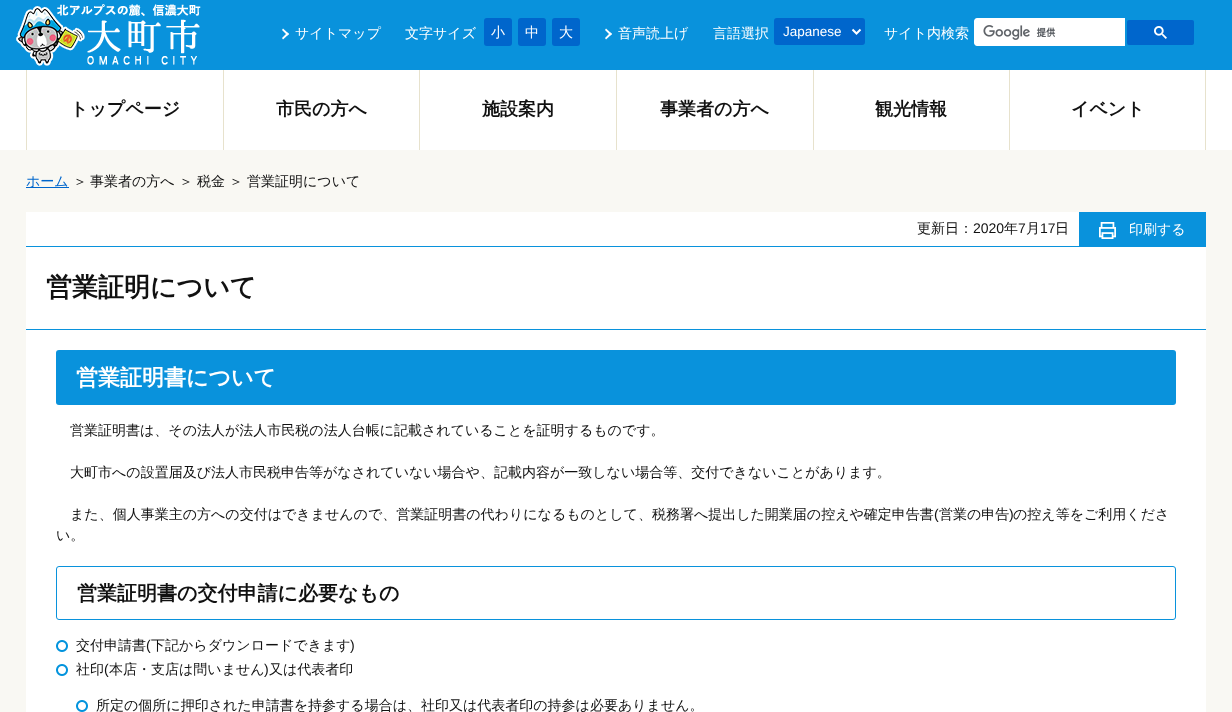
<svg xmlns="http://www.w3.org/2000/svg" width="1232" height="712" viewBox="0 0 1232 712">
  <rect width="100%" height="100%" fill="#ffffff"/>
  <rect x="0" y="0" width="1232" height="70" fill="#0992dc"/>
  <image x="16" y="4" width="185" height="62" href="img1.png"/>
  <path d="M282 30L283 28.5L289 34L287.5 35.5Z" fill="#ffffff"/>
  <path d="M282 38L287.5 32.5L289 34L283 39.5Z" fill="#ffffff"/>
  <text x="295" y="38" font-family="WenQuanYi Zen Hei" font-size="14" font-weight="500" fill="#ffffff">サイトマップ</text>
  <text x="405" y="38" font-family="WenQuanYi Zen Hei" font-size="14" font-weight="500" fill="#ffffff">文字サイズ</text>
  <rect x="484" y="18" width="28" height="28" rx="3" fill="#0066cc"/>
  <text x="491" y="37" font-family="WenQuanYi Zen Hei" font-size="14" font-weight="500" fill="#ffffff">小</text>
  <rect x="518" y="18" width="28" height="28" rx="3" fill="#0066cc"/>
  <text x="525" y="37" font-family="WenQuanYi Zen Hei" font-size="14" font-weight="500" fill="#ffffff">中</text>
  <rect x="552" y="18" width="28" height="28" rx="3" fill="#0066cc"/>
  <text x="559" y="37" font-family="WenQuanYi Zen Hei" font-size="14" font-weight="500" fill="#ffffff">大</text>
  <path d="M605 30L606 28.5L612 34L610.5 35.5Z" fill="#ffffff"/>
  <path d="M605 38L610.5 32.5L612 34L606 39.5Z" fill="#ffffff"/>
  <text x="618" y="38" font-family="WenQuanYi Zen Hei" font-size="14" font-weight="500" fill="#ffffff">音声読上げ</text>
  <text x="713" y="38" font-family="WenQuanYi Zen Hei" font-size="14" font-weight="500" fill="#ffffff">言語選択</text>
  <rect x="774" y="18" width="91" height="27" rx="3" fill="#0066cc"/>
  <path d="M852.5 29.5L856.5 33.5L860.5 29.5" fill="none" stroke="#ffffff" stroke-width="2"/>
  <text x="783" y="36" font-family="Liberation Sans" font-size="13.5" fill="#ffffff">Japanese</text>
  <text x="884" y="38" font-family="WenQuanYi Zen Hei" font-size="14" font-weight="500" fill="#ffffff">サイト内検索</text>
  <path d="M977 18H1125V46H977C975.5 46 974 44.5 974 43V21C974 19.5 975.5 18 977 18Z" fill="#ffffff"/>
  <image x="983" y="25" width="73" height="15" href="img2.png"/>
  <rect x="1127" y="20" width="67" height="25" rx="2" fill="#0066cc"/>
  <image x="1154" y="26" width="13" height="13" href="img3.png"/>
  <rect x="26" y="70" width="1" height="80" fill="#e7e2cd"/>
  <text x="70" y="115" font-family="WenQuanYi Zen Hei" font-size="18" font-weight="bold" fill="#111111">トップページ</text>
  <rect x="223" y="70" width="1" height="80" fill="#e7e2cd"/>
  <text x="276" y="115" font-family="WenQuanYi Zen Hei" font-size="18" font-weight="bold" fill="#111111">市民の方へ</text>
  <rect x="419" y="70" width="1" height="80" fill="#e7e2cd"/>
  <text x="482" y="115" font-family="WenQuanYi Zen Hei" font-size="18" font-weight="bold" fill="#111111">施設案内</text>
  <rect x="616" y="70" width="1" height="80" fill="#e7e2cd"/>
  <text x="660" y="115" font-family="WenQuanYi Zen Hei" font-size="18" font-weight="bold" fill="#111111">事業者の方へ</text>
  <rect x="813" y="70" width="1" height="80" fill="#e7e2cd"/>
  <text x="875" y="115" font-family="WenQuanYi Zen Hei" font-size="18" font-weight="bold" fill="#111111">観光情報</text>
  <rect x="1205" y="70" width="1" height="80" fill="#e7e2cd"/>
  <rect x="1009" y="70" width="1" height="80" fill="#e7e2cd"/>
  <text x="1071" y="115" font-family="WenQuanYi Zen Hei" font-size="18" font-weight="bold" fill="#111111">イベント</text>
  <rect x="0" y="150" width="1232" height="562" fill="#f9f8f3"/>
  <rect x="26" y="187" width="43" height="1" fill="#0066cc"/>
  <text x="26" y="186" font-family="WenQuanYi Zen Hei" font-size="14" font-weight="500" fill="#0066cc">ホーム</text>
  <text x="73" y="186" font-family="WenQuanYi Zen Hei" font-size="14" font-weight="500" fill="#111111">＞</text>
  <text x="90" y="186" font-family="WenQuanYi Zen Hei" font-size="14" font-weight="500" fill="#111111">事業者の方へ</text>
  <text x="179" y="186" font-family="WenQuanYi Zen Hei" font-size="14" font-weight="500" fill="#111111">＞</text>
  <text x="197" y="186" font-family="WenQuanYi Zen Hei" font-size="14" font-weight="500" fill="#111111">税金</text>
  <text x="229" y="186" font-family="WenQuanYi Zen Hei" font-size="14" font-weight="500" fill="#111111">＞</text>
  <text x="247" y="186" font-family="WenQuanYi Zen Hei" font-size="14" font-weight="500" fill="#111111">営業証明について</text>
  <rect x="26" y="212" width="1180" height="500" fill="#ffffff"/>
  <text x="917" y="233" font-family="WenQuanYi Zen Hei" font-size="14" font-weight="500" fill="#111111">更新日：</text>
  <text x="973" y="233" font-family="Liberation Sans" font-size="14" fill="#111111">2020</text>
  <text x="1004" y="233" font-family="WenQuanYi Zen Hei" font-size="14" font-weight="500" fill="#111111">年</text>
  <text x="1018" y="233" font-family="Liberation Sans" font-size="14" fill="#111111">7</text>
  <text x="1026" y="233" font-family="WenQuanYi Zen Hei" font-size="14" font-weight="500" fill="#111111">月</text>
  <text x="1040" y="233" font-family="Liberation Sans" font-size="14" fill="#111111">17</text>
  <text x="1055" y="233" font-family="WenQuanYi Zen Hei" font-size="14" font-weight="500" fill="#111111">日</text>
  <rect x="1079" y="212" width="127" height="34" fill="#0992dc"/>
  <image x="1099" y="222" width="17" height="17" href="img4.png"/>
  <text x="1129" y="234" font-family="WenQuanYi Zen Hei" font-size="14" font-weight="500" fill="#ffffff">印刷する</text>
  <rect x="26" y="246" width="1180" height="1" fill="#0992dc"/>
  <rect x="26" y="329" width="1180" height="1" fill="#0992dc"/>
  <text x="46" y="296" font-family="WenQuanYi Zen Hei" font-size="26" font-weight="bold" fill="#111111">営業証明について</text>
  <rect x="56" y="350" width="1120" height="55" rx="3" fill="#0992dc"/>
  <text x="76" y="385" font-family="WenQuanYi Zen Hei" font-size="22" font-weight="bold" fill="#ffffff">営業証明書について</text>
  <text x="70" y="435" font-family="WenQuanYi Zen Hei" font-size="14" font-weight="500" fill="#111111">営業証明書は、その法人が法人市民税の法人台帳に記載されていることを証明するものです。</text>
  <text x="70" y="477" font-family="WenQuanYi Zen Hei" font-size="14" font-weight="500" fill="#111111">大町市への設置届及び法人市民税申告等がなされていない場合や、記載内容が一致しない場合等、交付できないことがあります。</text>
  <text x="70" y="519" font-family="WenQuanYi Zen Hei" font-size="14" font-weight="500" fill="#111111">また、個人事業主の方への交付はできませんので、営業証明書の代わりになるものとして、税務署へ提出した開業届の控えや確定申告書</text>
  <text x="934" y="519" font-family="Liberation Sans" font-size="14" fill="#111111">(</text>
  <text x="939" y="519" font-family="WenQuanYi Zen Hei" font-size="14" font-weight="500" fill="#111111">営業の申告</text>
  <text x="1009" y="519" font-family="Liberation Sans" font-size="14" fill="#111111">)</text>
  <text x="1013" y="519" font-family="WenQuanYi Zen Hei" font-size="14" font-weight="500" fill="#111111">の控え等をご利用くださ</text>
  <text x="56" y="540" font-family="WenQuanYi Zen Hei" font-size="14" font-weight="500" fill="#111111">い。</text>
  <rect x="56.5" y="566.5" width="1119" height="53" rx="2.5" fill="none" stroke="#0992dc"/>
  <text x="77" y="600" font-family="WenQuanYi Zen Hei" font-size="20" font-weight="bold" fill="#111111">営業証明書の交付申請に必要なもの</text>
  <image x="56" y="640" width="12" height="12" href="img5.png"/>
  <text x="76" y="650" font-family="WenQuanYi Zen Hei" font-size="14" font-weight="500" fill="#111111">交付申請書</text>
  <text x="146" y="650" font-family="Liberation Sans" font-size="14" fill="#111111">(</text>
  <text x="151" y="650" font-family="WenQuanYi Zen Hei" font-size="14" font-weight="500" fill="#111111">下記からダウンロードできます</text>
  <text x="350" y="650" font-family="Liberation Sans" font-size="14" fill="#111111">)</text>
  <image x="56" y="664" width="12" height="12" href="img5.png"/>
  <text x="76" y="674" font-family="WenQuanYi Zen Hei" font-size="14" font-weight="500" fill="#111111">社印</text>
  <text x="104" y="674" font-family="Liberation Sans" font-size="14" fill="#111111">(</text>
  <text x="109" y="674" font-family="WenQuanYi Zen Hei" font-size="14" font-weight="500" fill="#111111">本店・支店は問いません</text>
  <text x="264" y="674" font-family="Liberation Sans" font-size="14" fill="#111111">)</text>
  <text x="269" y="674" font-family="WenQuanYi Zen Hei" font-size="14" font-weight="500" fill="#111111">又は代表者印</text>
  <image x="76" y="700" width="12" height="12" href="img5.png"/>
  <text x="96" y="710" font-family="WenQuanYi Zen Hei" font-size="14" font-weight="500" fill="#111111">所定の個所に押印された申請書を持参する場合は、社印又は代表者印の持参は必要ありません。</text>
</svg>
